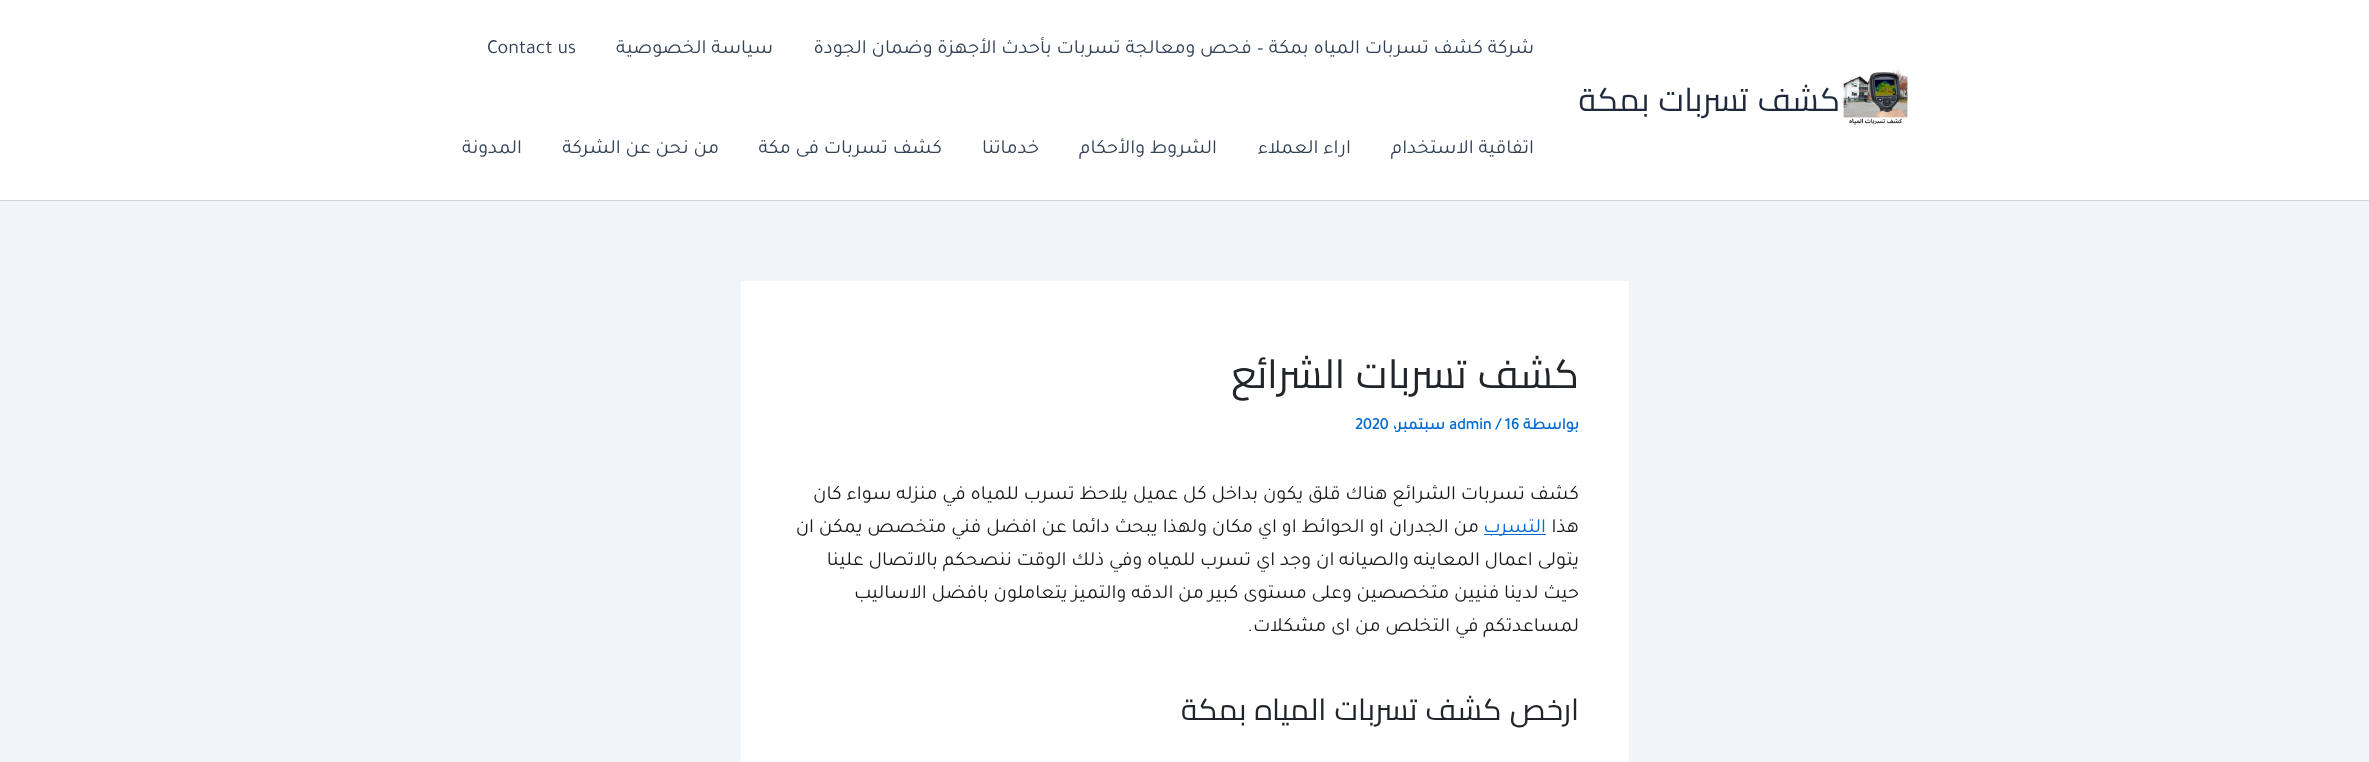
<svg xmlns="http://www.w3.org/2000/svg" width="2369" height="762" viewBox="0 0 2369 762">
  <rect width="100%" height="100%" fill="#f0f5fa"/>
  <rect x="0" y="0" width="2369" height="200" fill="#ffffff"/>
  <rect x="0" y="200" width="2369" height="1" fill="#d1d5db"/>
  <image x="1843" y="68" width="65" height="57" href="img1.png"/>
  <text x="1840" y="111" word-spacing="2" font-family="Cairo" font-size="32.5" direction="rtl" fill="#1e293b">كشف تسربات بمكة</text>
  <text x="1534" y="53" font-family="Tajawal" font-size="20" direction="rtl" fill="#334155">شركة كشف تسربات المياه بمكة – فحص ومعالجة تسربات بأحدث الأجهزة وضمان الجودة</text>
  <text x="773" y="53" font-family="Tajawal" font-size="20" direction="rtl" fill="#334155">سياسة الخصوصية</text>
  <text x="487" y="53" font-family="Tajawal" font-size="20" fill="#334155">Contact us</text>
  <text x="1534" y="153" font-family="Tajawal" font-size="20" direction="rtl" fill="#334155">اتفاقية الاستخدام</text>
  <text x="1351" y="153" font-family="Tajawal" font-size="20" direction="rtl" fill="#334155">اراء العملاء</text>
  <text x="1217" y="153" font-family="Tajawal" font-size="20" direction="rtl" fill="#334155">الشروط والأحكام</text>
  <text x="1039" y="153" font-family="Tajawal" font-size="20" direction="rtl" fill="#334155">خدماتنا</text>
  <text x="942" y="153" font-family="Tajawal" font-size="20" direction="rtl" fill="#334155">كشف تسربات فى مكة</text>
  <text x="719" y="153" font-family="Tajawal" font-size="20" direction="rtl" fill="#334155">من نحن عن الشركة</text>
  <text x="522" y="153" font-family="Tajawal" font-size="20" direction="rtl" fill="#334155">المدونة</text>
  <rect x="741" y="281" width="888" height="481" fill="#ffffff"/>
  <text x="1579" y="388" word-spacing="2" font-family="Cairo" font-size="40" direction="rtl" fill="#212529">كشف تسربات الشرائع</text>
  <text x="1579" y="429" font-family="Tajawal" font-size="16.25" font-weight="bold" direction="rtl" fill="#046bd2">بواسطة</text>
  <text x="1449" y="429" font-family="Tajawal" font-size="16.25" font-weight="bold" fill="#046bd2">admin / 16</text>
  <text x="1445" y="429" font-family="Tajawal" font-size="16.25" font-weight="bold" direction="rtl" fill="#046bd2">سبتمبر،</text>
  <text x="1355" y="429" font-family="Tajawal" font-size="16.25" font-weight="bold" fill="#046bd2">2020</text>
  <text x="1579" y="499" font-family="Tajawal" font-size="20" direction="rtl" fill="#1a1a1a">كشف تسربات الشرائع هناك قلق يكون بداخل كل عميل يلاحظ تسرب للمياه في منزله سواء كان</text>
  <text x="1579" y="532" font-family="Tajawal" font-size="20" direction="rtl" fill="#1a1a1a">هذا</text>
  <rect x="1484" y="534" width="62" height="1" fill="#046bd2"/>
  <text x="1546" y="532" font-family="Tajawal" font-size="20" direction="rtl" fill="#046bd2">التسرب</text>
  <text x="1479" y="532" font-family="Tajawal" font-size="20" direction="rtl" fill="#1a1a1a">من الجدران او الحوائط او اي مكان ولهذا يبحث دائما عن افضل فني متخصص يمكن ان</text>
  <text x="1579" y="565" font-family="Tajawal" font-size="20" direction="rtl" fill="#1a1a1a">يتولى اعمال المعاينه والصيانه ان وجد اي تسرب للمياه وفي ذلك الوقت ننصحكم بالاتصال علينا</text>
  <text x="1579" y="598" font-family="Tajawal" font-size="20" direction="rtl" fill="#1a1a1a">حيث لدينا فنيين متخصصين وعلى مستوى كبير من الدقه والتميز يتعاملون بافضل الاساليب</text>
  <text x="1579" y="631" font-family="Tajawal" font-size="20" direction="rtl" fill="#1a1a1a">لمساعدتكم في التخلص من اى مشكلات.</text>
  <text x="1579" y="720" word-spacing="1.5" font-family="Cairo" font-size="30" direction="rtl" fill="#212529">ارخص كشف تسربات المياه بمكة</text>
</svg>
